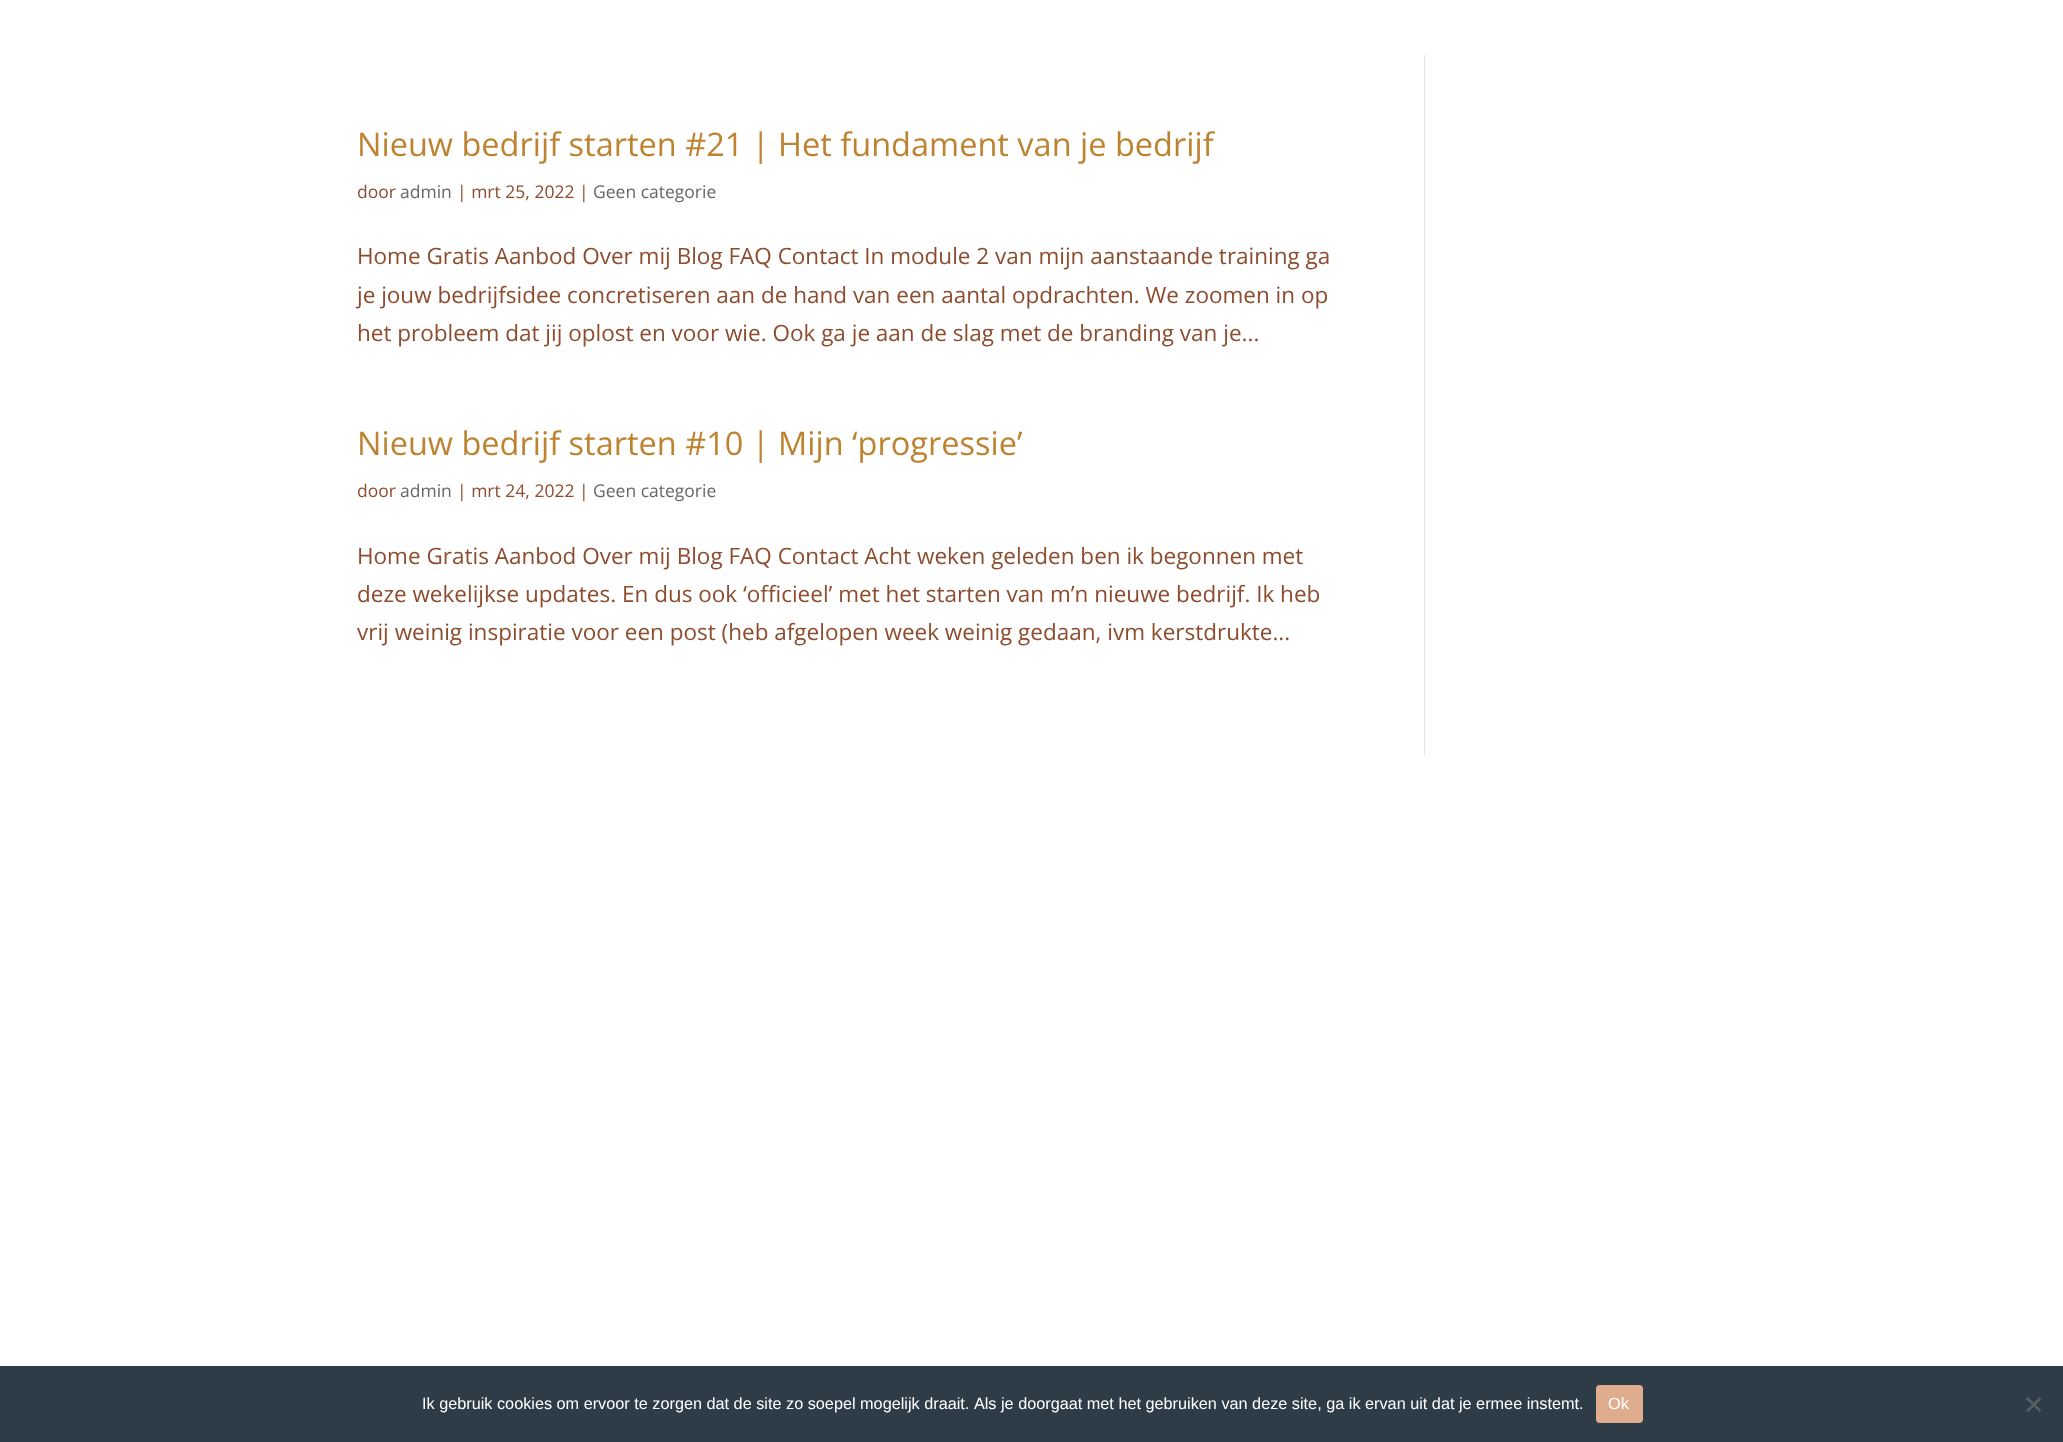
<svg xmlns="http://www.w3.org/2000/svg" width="2063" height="1442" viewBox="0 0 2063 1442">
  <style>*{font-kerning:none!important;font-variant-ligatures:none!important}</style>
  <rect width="100%" height="100%" fill="#ffffff"/>
  <text x="357" y="156" font-family="Open Sans" font-size="32.5" fill="#bd8331">Nieuw bedrijf starten #21 | Het fundament van je bedrijf</text>
  <text x="357" y="198" font-family="Open Sans" font-size="17.5" fill="#8d4c2e">door</text>
  <text x="400" y="198" font-family="Open Sans" font-size="17.5" fill="#666666">admin</text>
  <text x="457" y="198" font-family="Open Sans" font-size="17.5" fill="#8d4c2e">| mrt 25, 2022 |</text>
  <text x="593" y="198" font-family="Open Sans" font-size="17.5" fill="#666666">Geen categorie</text>
  <text x="357" y="264" font-family="Open Sans" font-size="22.5" fill="#8d4c2e">Home Gratis Aanbod Over mij Blog FAQ Contact In module 2 van mijn aanstaande training ga</text>
  <text x="357" y="303" font-family="Open Sans" font-size="22.5" fill="#8d4c2e">je jouw bedrijfsidee concretiseren aan de hand van een aantal opdrachten. We zoomen in op</text>
  <text x="357" y="341" font-family="Open Sans" font-size="22.5" fill="#8d4c2e">het probleem dat jij oplost en voor wie. Ook ga je aan de slag met de branding van je...</text>
  <text x="357" y="455" font-family="Open Sans" font-size="32.5" fill="#bd8331">Nieuw bedrijf starten #10 | Mijn ‘progressie’</text>
  <text x="357" y="497" font-family="Open Sans" font-size="17.5" fill="#8d4c2e">door</text>
  <text x="400" y="497" font-family="Open Sans" font-size="17.5" fill="#666666">admin</text>
  <text x="457" y="497" font-family="Open Sans" font-size="17.5" fill="#8d4c2e">| mrt 24, 2022 |</text>
  <text x="593" y="497" font-family="Open Sans" font-size="17.5" fill="#666666">Geen categorie</text>
  <text x="357" y="564" font-family="Open Sans" font-size="22.5" fill="#8d4c2e">Home Gratis Aanbod Over mij Blog FAQ Contact Acht weken geleden ben ik begonnen met</text>
  <text x="357" y="602" font-family="Open Sans" font-size="22.5" fill="#8d4c2e">deze wekelijkse updates. En dus ook ‘officieel’ met het starten van m’n nieuwe bedrijf. Ik heb</text>
  <text x="357" y="640" font-family="Open Sans" font-size="22.5" fill="#8d4c2e">vrij weinig inspiratie voor een post (heb afgelopen week weinig gedaan, ivm kerstdrukte...</text>
  <rect x="1424" y="55" width="1" height="700" fill="#e2e2e2"/>
  <rect x="0" y="1366" width="2063" height="76" fill="#2e3c48"/>
  <text x="422" y="1409" font-family="Liberation Sans" font-size="16.25" fill="#ffffff">Ik gebruik cookies om ervoor te zorgen dat de site zo soepel mogelijk draait. Als je doorgaat met het gebruiken van deze site, ga ik ervan uit dat je ermee instemt.</text>
  <rect x="1596" y="1385" width="47" height="38" rx="4" fill="#dfac8d"/>
  <text x="1608" y="1409" font-family="Liberation Sans" font-size="16.25" fill="#ffffff">Ok</text>
  <path d="M2039.5 1397L2041.5 1399L2028 1412L2026 1410.5Z" fill="#575e64"/>
  <path d="M2026 1399L2028 1397L2041.5 1410.5L2039.5 1412Z" fill="#575e64"/>
</svg>
